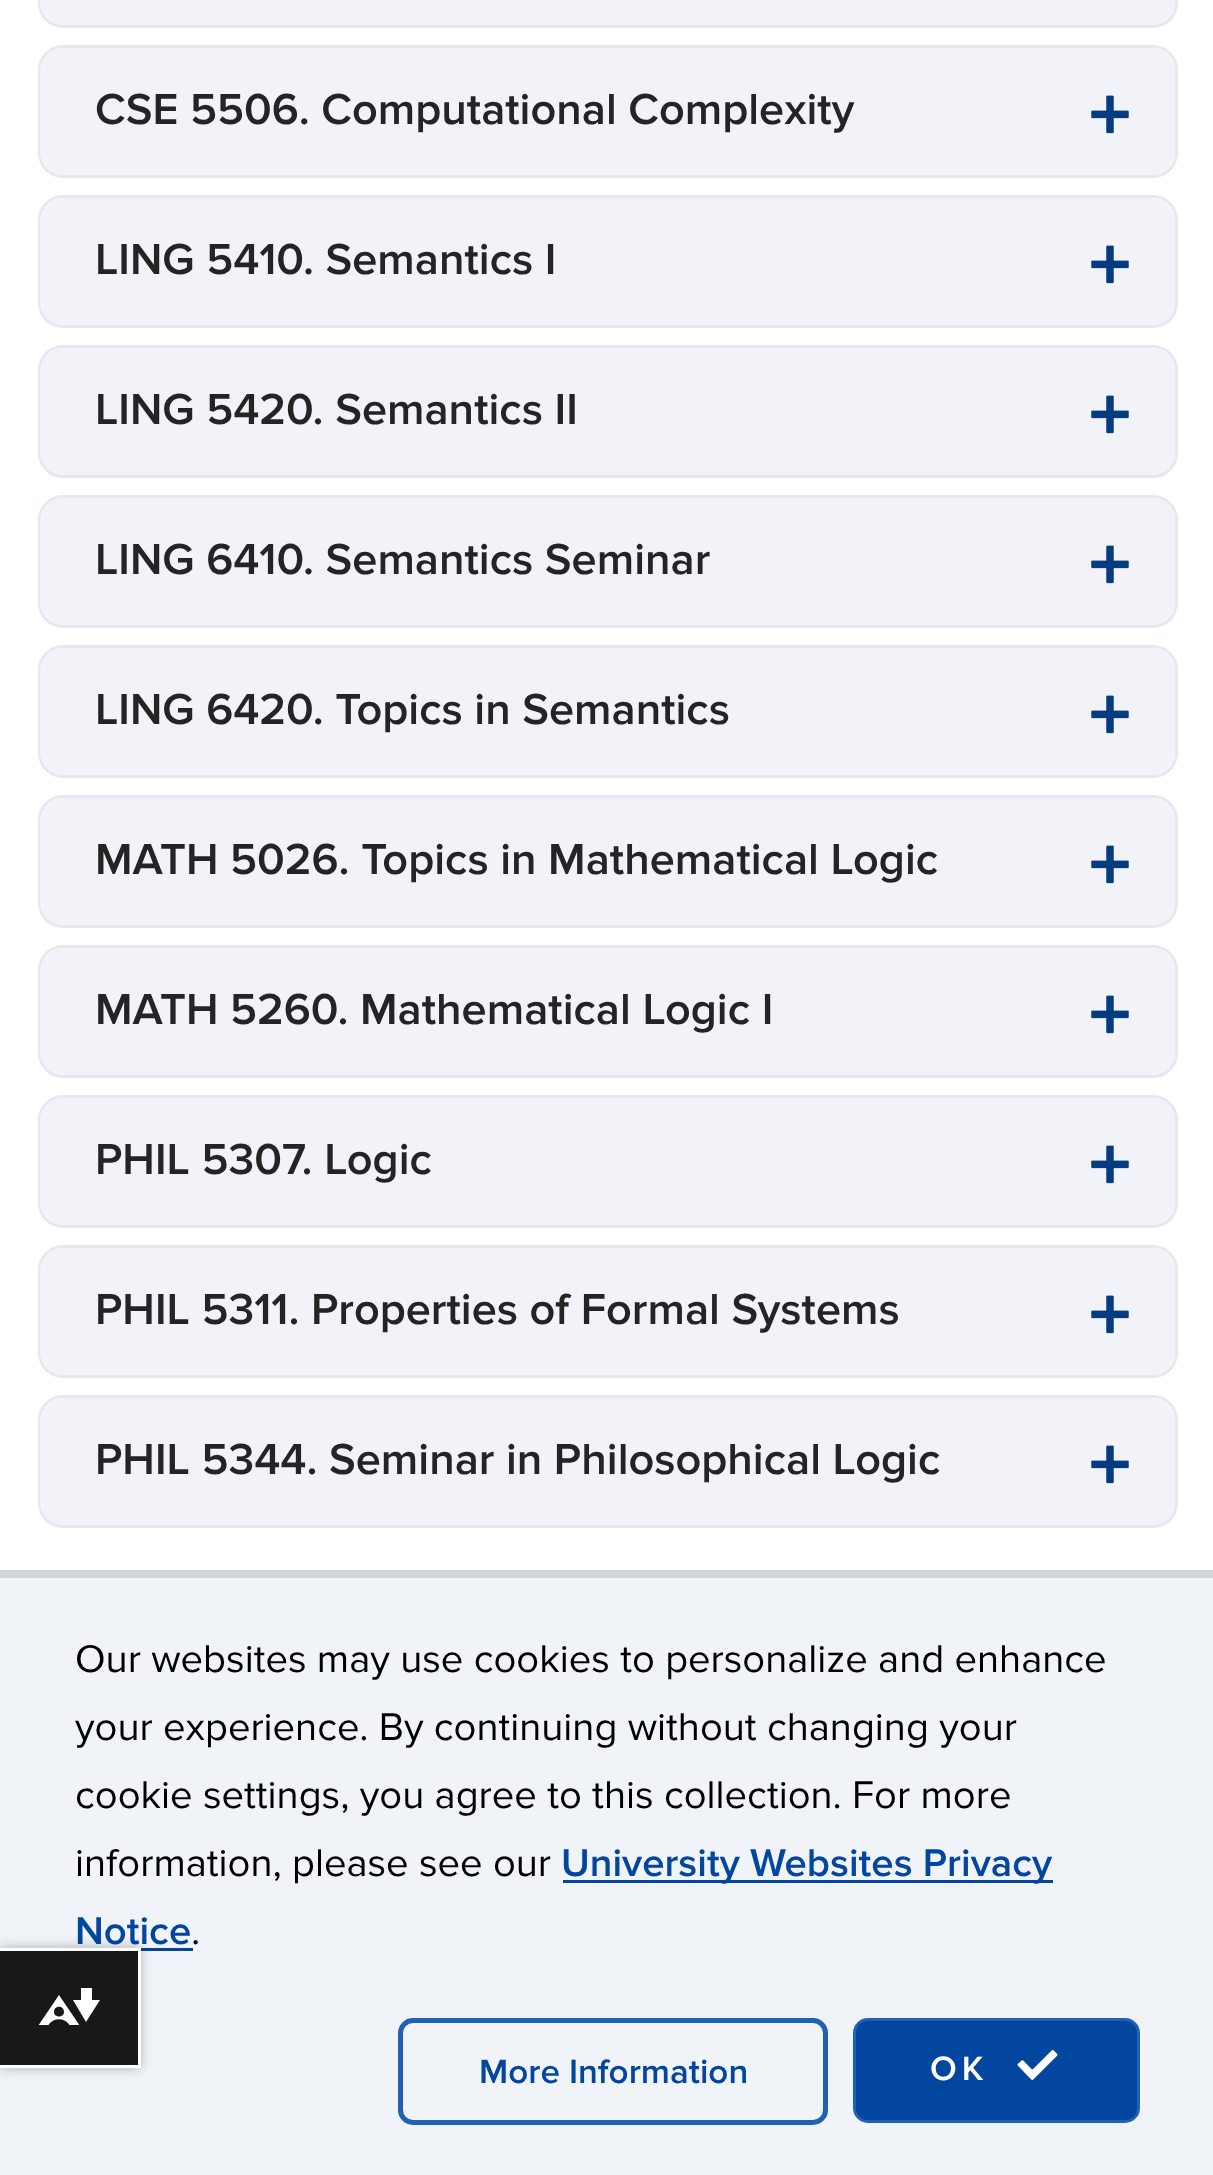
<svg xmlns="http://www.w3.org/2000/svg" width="1213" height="2175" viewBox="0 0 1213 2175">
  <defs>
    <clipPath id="clip1"><path d="M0 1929H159V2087H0ZM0 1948H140V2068H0Z" clip-rule="evenodd"/></clipPath>
    <filter id="blur1" x="-50%" y="-200%" width="200%" height="500%"><feGaussianBlur stdDeviation="6"/></filter>
    <clipPath id="clip2"><rect x="38" y="1988" width="62" height="37"/></clipPath>
  </defs>
  <rect width="100%" height="100%" fill="#ffffff"/>
  <rect x="39.5" y="-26.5" width="1137" height="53" rx="23.5" fill="#fafbff" stroke="#e5e8ee" stroke-width="3"/>
  <rect x="40" y="-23" width="1135" height="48" rx="23" fill="#f1f3f8"/>
  <rect x="39.5" y="46.5" width="1137" height="130" rx="23.5" fill="#fafbff" stroke="#e5e8ee" stroke-width="3"/>
  <rect x="40" y="48" width="1135" height="127" rx="23" fill="#f1f3f8"/>
  <text x="95" y="124" font-family="Proxima Nova" font-size="45" font-weight="600" fill="#242424">CSE 5506. Computational Complexity</text>
  <image x="1091" y="95" width="38" height="39" href="img1.png"/>
  <rect x="39.5" y="196.5" width="1137" height="130" rx="23.5" fill="#fafbff" stroke="#e5e8ee" stroke-width="3"/>
  <rect x="40" y="198" width="1135" height="127" rx="23" fill="#f1f3f8"/>
  <text x="95" y="274" font-family="Proxima Nova" font-size="45" font-weight="600" fill="#242424">LING 5410. Semantics I</text>
  <image x="1091" y="245" width="38" height="39" href="img1.png"/>
  <rect x="39.5" y="346.5" width="1137" height="130" rx="23.5" fill="#fafbff" stroke="#e5e8ee" stroke-width="3"/>
  <rect x="40" y="348" width="1135" height="127" rx="23" fill="#f1f3f8"/>
  <text x="95" y="424" font-family="Proxima Nova" font-size="45" font-weight="600" fill="#242424">LING 5420. Semantics II</text>
  <image x="1091" y="395" width="38" height="39" href="img1.png"/>
  <rect x="39.5" y="496.5" width="1137" height="130" rx="23.5" fill="#fafbff" stroke="#e5e8ee" stroke-width="3"/>
  <rect x="40" y="498" width="1135" height="127" rx="23" fill="#f1f3f8"/>
  <text x="95" y="574" font-family="Proxima Nova" font-size="45" font-weight="600" fill="#242424">LING 6410. Semantics Seminar</text>
  <image x="1091" y="545" width="38" height="39" href="img1.png"/>
  <rect x="39.5" y="646.5" width="1137" height="130" rx="23.5" fill="#fafbff" stroke="#e5e8ee" stroke-width="3"/>
  <rect x="40" y="648" width="1135" height="127" rx="23" fill="#f1f3f8"/>
  <text x="95" y="724" font-family="Proxima Nova" font-size="45" font-weight="600" fill="#242424">LING 6420. Topics in Semantics</text>
  <image x="1091" y="695" width="38" height="39" href="img1.png"/>
  <rect x="39.5" y="796.5" width="1137" height="130" rx="23.5" fill="#fafbff" stroke="#e5e8ee" stroke-width="3"/>
  <rect x="40" y="798" width="1135" height="127" rx="23" fill="#f1f3f8"/>
  <text x="95" y="874" font-family="Proxima Nova" font-size="45" font-weight="600" fill="#242424">MATH 5026. Topics in Mathematical Logic</text>
  <image x="1091" y="845" width="38" height="39" href="img1.png"/>
  <rect x="39.5" y="946.5" width="1137" height="130" rx="23.5" fill="#fafbff" stroke="#e5e8ee" stroke-width="3"/>
  <rect x="40" y="948" width="1135" height="127" rx="23" fill="#f1f3f8"/>
  <text x="95" y="1024" font-family="Proxima Nova" font-size="45" font-weight="600" fill="#242424">MATH 5260. Mathematical Logic I</text>
  <image x="1091" y="995" width="38" height="39" href="img1.png"/>
  <rect x="39.5" y="1096.5" width="1137" height="130" rx="23.5" fill="#fafbff" stroke="#e5e8ee" stroke-width="3"/>
  <rect x="40" y="1098" width="1135" height="127" rx="23" fill="#f1f3f8"/>
  <text x="95" y="1174" font-family="Proxima Nova" font-size="45" font-weight="600" fill="#242424">PHIL 5307. Logic</text>
  <image x="1091" y="1145" width="38" height="39" href="img1.png"/>
  <rect x="39.5" y="1246.5" width="1137" height="130" rx="23.5" fill="#fafbff" stroke="#e5e8ee" stroke-width="3"/>
  <rect x="40" y="1248" width="1135" height="127" rx="23" fill="#f1f3f8"/>
  <text x="95" y="1324" font-family="Proxima Nova" font-size="45" font-weight="600" fill="#242424">PHIL 5311. Properties of Formal Systems</text>
  <image x="1091" y="1295" width="38" height="39" href="img1.png"/>
  <rect x="39.5" y="1396.5" width="1137" height="130" rx="23.5" fill="#fafbff" stroke="#e5e8ee" stroke-width="3"/>
  <rect x="40" y="1398" width="1135" height="127" rx="23" fill="#f1f3f8"/>
  <text x="95" y="1474" font-family="Proxima Nova" font-size="45" font-weight="600" fill="#242424">PHIL 5344. Seminar in Philosophical Logic</text>
  <image x="1091" y="1445" width="38" height="39" href="img1.png"/>
  <rect x="0" y="1578" width="1213" height="597" fill="#f0f3f7"/>
  <rect x="0" y="1570" width="1213" height="8" fill="#cfd5dd"/>
  <text x="75" y="1672" font-family="Proxima Nova" font-size="40" fill="#000000">Our websites may use cookies to personalize and enhance</text>
  <text x="75" y="1740" font-family="Proxima Nova" font-size="40" fill="#000000">your experience. By continuing without changing your</text>
  <text x="75" y="1808" font-family="Proxima Nova" font-size="40" fill="#000000">cookie settings, you agree to this collection. For more</text>
  <text x="75" y="1876" font-family="Proxima Nova" font-size="40" fill="#000000">information, please see our</text>
  <rect x="563" y="1880" width="490" height="3" fill="#03469f"/>
  <text x="561" y="1876" font-family="Proxima Nova" font-size="40" font-weight="600" fill="#03469f">University Websites Privacy</text>
  <text x="75" y="1944" font-family="Proxima Nova" font-size="40" font-weight="600" fill="#03469f">Notice</text>
  <rect x="141" y="1948" width="52" height="3" fill="#03469f"/>
  <text x="191" y="1944" font-family="Proxima Nova" font-size="40" fill="#000000">.</text>
  <rect x="400.5" y="2020.5" width="425" height="102" rx="12.5" fill="none" stroke="#2061b6" stroke-width="5"/>
  <text x="479" y="2083" font-family="Proxima Nova" font-size="35" font-weight="600" fill="#03469f">More Information</text>
  <rect x="854.5" y="2019.5" width="284" height="102" rx="13.5" fill="#03469f" stroke="#2061b6" stroke-width="3"/>
  <text x="930" y="2080" font-family="Proxima Nova" font-size="35" font-weight="600" letter-spacing="5" fill="#ffffff">OK</text>
  <image x="1017" y="2050" width="41" height="30" href="img2.png"/>
  <g clip-path="url(#clip1)">
    <rect x="0" y="1948" width="140" height="120" fill="#000000" fill-opacity="0.3" filter="url(#blur1)"/>
  </g>
  <rect x="0" y="1951" width="138" height="114" fill="#000000" fill-opacity="0.9"/>
  <rect x="0" y="1948" width="140" height="3" fill="#ffffff"/>
  <rect x="138" y="1948" width="3" height="120" fill="#ffffff"/>
  <rect x="0" y="2065" width="140" height="3" fill="#ffffff"/>
  <g clip-path="url(#clip2)">
    <path d="M100 2000L86 2022L73 2000H81V1988H92V2000ZM38 2026L59 1995L80 2026H70C66 2017 52 2017 48 2026ZM54 2012C54 2018 64 2018 64 2012C64 2005 54 2005 54 2012Z" fill="#ffffff" fill-rule="evenodd"/>
  </g>
</svg>
